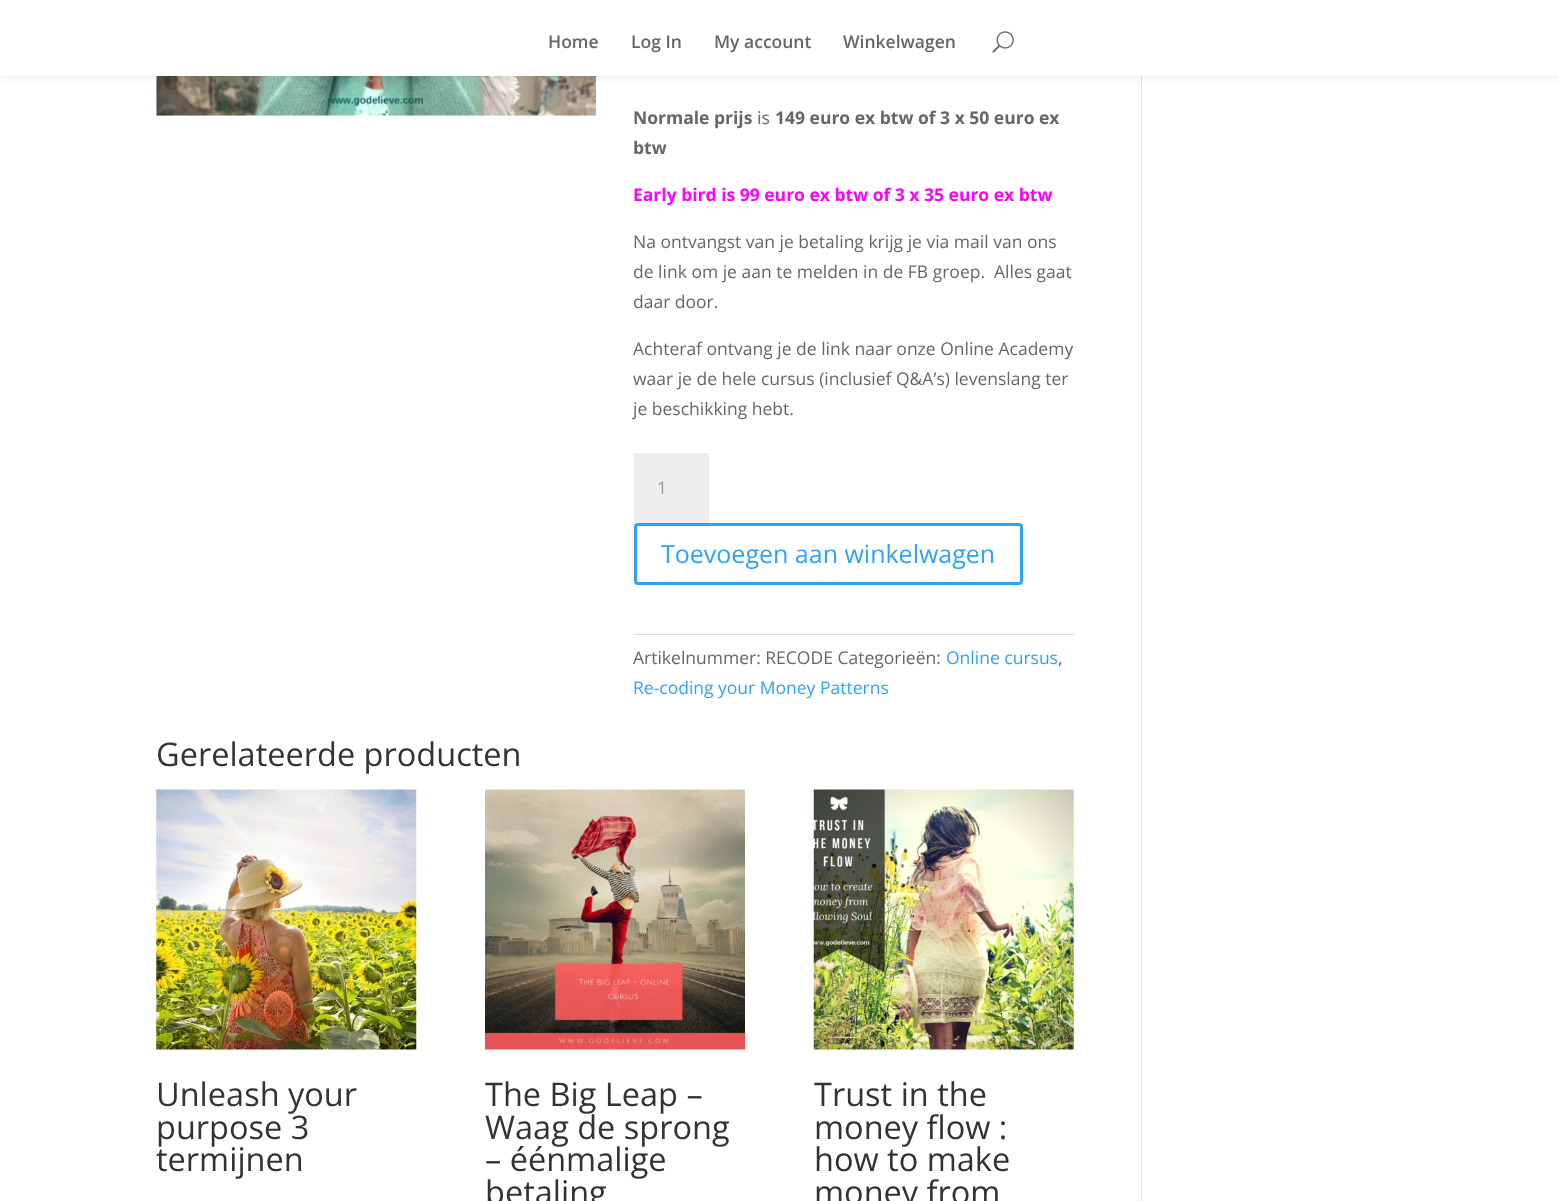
<svg xmlns="http://www.w3.org/2000/svg" width="1558" height="1201" viewBox="0 0 1558 1201">
  <defs>
    <filter id="blur1" x="-50%" y="-200%" width="200%" height="500%"><feGaussianBlur stdDeviation="4.5"/></filter>
  </defs>
  <rect width="100%" height="100%" fill="#ffffff"/>
  <image x="156" y="76" width="441" height="40" href="img2.png"/>
  <rect x="1141" y="76" width="1" height="1125" fill="#e2e2e2"/>
  <rect x="0" y="0" width="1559" height="76" fill="#000000" fill-opacity="0.1" filter="url(#blur1)"/>
  <rect x="0" y="0" width="1558" height="76" fill="#ffffff"/>
  <text x="548" y="48" font-family="Open Sans" font-size="17.5" font-weight="600" fill="#666666">Home</text>
  <text x="631" y="48" font-family="Open Sans" font-size="17.5" font-weight="600" fill="#666666">Log In</text>
  <text x="714" y="48" font-family="Open Sans" font-size="17.5" font-weight="600" fill="#666666">My account</text>
  <text x="843" y="48" font-family="Open Sans" font-size="17.5" font-weight="600" fill="#666666">Winkelwagen</text>
  <image x="992" y="31" width="22" height="22" href="img1.png"/>
  <text x="633" y="124" font-family="Open Sans" font-size="17.5" font-weight="bold" fill="#666666">Normale prijs</text>
  <text x="757" y="124" font-family="Open Sans" font-size="17.5" fill="#666666">is</text>
  <text x="775" y="124" font-family="Open Sans" font-size="17.5" font-weight="bold" fill="#666666">149 euro ex btw of 3 x 50 euro ex</text>
  <text x="633" y="154" font-family="Open Sans" font-size="17.5" font-weight="bold" fill="#666666">btw</text>
  <text x="633" y="201" font-family="Open Sans" font-size="17.5" font-weight="bold" fill="#ff00ff">Early bird is 99 euro ex btw of 3 x 35 euro ex btw</text>
  <text x="633" y="248" font-family="Open Sans" font-size="17.5" fill="#666666">Na ontvangst van je betaling krijg je via mail van ons</text>
  <text x="633" y="278" font-family="Open Sans" font-size="17.5" fill="#666666">de link om je aan te melden in de FB groep.</text>
  <text x="994" y="278" font-family="Open Sans" font-size="17.5" fill="#666666">Alles gaat</text>
  <text x="633" y="308" font-family="Open Sans" font-size="17.5" fill="#666666">daar door.</text>
  <text x="633" y="355" font-family="Open Sans" font-size="17.5" fill="#666666">Achteraf ontvang je de link naar onze Online Academy</text>
  <text x="633" y="385" font-family="Open Sans" font-size="17.5" fill="#666666">waar je de hele cursus (inclusief Q&amp;A’s) levenslang ter</text>
  <text x="633" y="415" font-family="Open Sans" font-size="17.5" fill="#666666">je beschikking hebt.</text>
  <rect x="634" y="453" width="75" height="70" fill="#eeeeee"/>
  <text x="657" y="494" font-family="Open Sans" font-size="17.5" fill="#999999">1</text>
  <rect x="635.5" y="524.5" width="386" height="59" rx="2.5" fill="none" stroke="#2ea3f2" stroke-width="3"/>
  <text x="661" y="563" font-family="Open Sans" font-size="25" fill="#2ea3f2">Toevoegen aan winkelwagen</text>
  <rect x="634" y="634" width="440" height="1" fill="#dadada"/>
  <text x="633" y="664" font-family="Open Sans" font-size="17.5" fill="#666666">Artikelnummer: RECODE Categorieën:</text>
  <text x="946" y="664" font-family="Open Sans" font-size="17.5" fill="#2ea3f2">Online cursus</text>
  <text x="1058" y="664" font-family="Open Sans" font-size="17.5" fill="#666666">,</text>
  <text x="633" y="694" font-family="Open Sans" font-size="17.5" fill="#2ea3f2">Re-coding your Money Patterns</text>
  <text x="156" y="766" font-family="Open Sans" font-size="32.5" fill="#333333">Gerelateerde producten</text>
  <image x="156" y="789" width="261" height="261" href="img3.png"/>
  <text x="156" y="1106" font-family="Open Sans" font-size="32.5" fill="#333333">Unleash your</text>
  <text x="156" y="1139" font-family="Open Sans" font-size="32.5" fill="#333333">purpose 3</text>
  <text x="156" y="1171" font-family="Open Sans" font-size="32.5" fill="#333333">termijnen</text>
  <image x="485" y="789" width="260" height="261" href="img4.png"/>
  <text x="485" y="1106" font-family="Open Sans" font-size="32.5" fill="#333333">The Big Leap –</text>
  <text x="485" y="1139" font-family="Open Sans" font-size="32.5" fill="#333333">Waag de sprong</text>
  <text x="485" y="1171" font-family="Open Sans" font-size="32.5" fill="#333333">– éénmalige</text>
  <text x="485" y="1204" font-family="Open Sans" font-size="32.5" fill="#333333">betaling</text>
  <image x="813" y="789" width="261" height="261" href="img5.png"/>
  <text x="814" y="1106" font-family="Open Sans" font-size="32.5" fill="#333333">Trust in the</text>
  <text x="814" y="1139" font-family="Open Sans" font-size="32.5" fill="#333333">money flow :</text>
  <text x="814" y="1171" font-family="Open Sans" font-size="32.5" fill="#333333">how to make</text>
  <text x="814" y="1204" font-family="Open Sans" font-size="32.5" fill="#333333">money from</text>
</svg>
